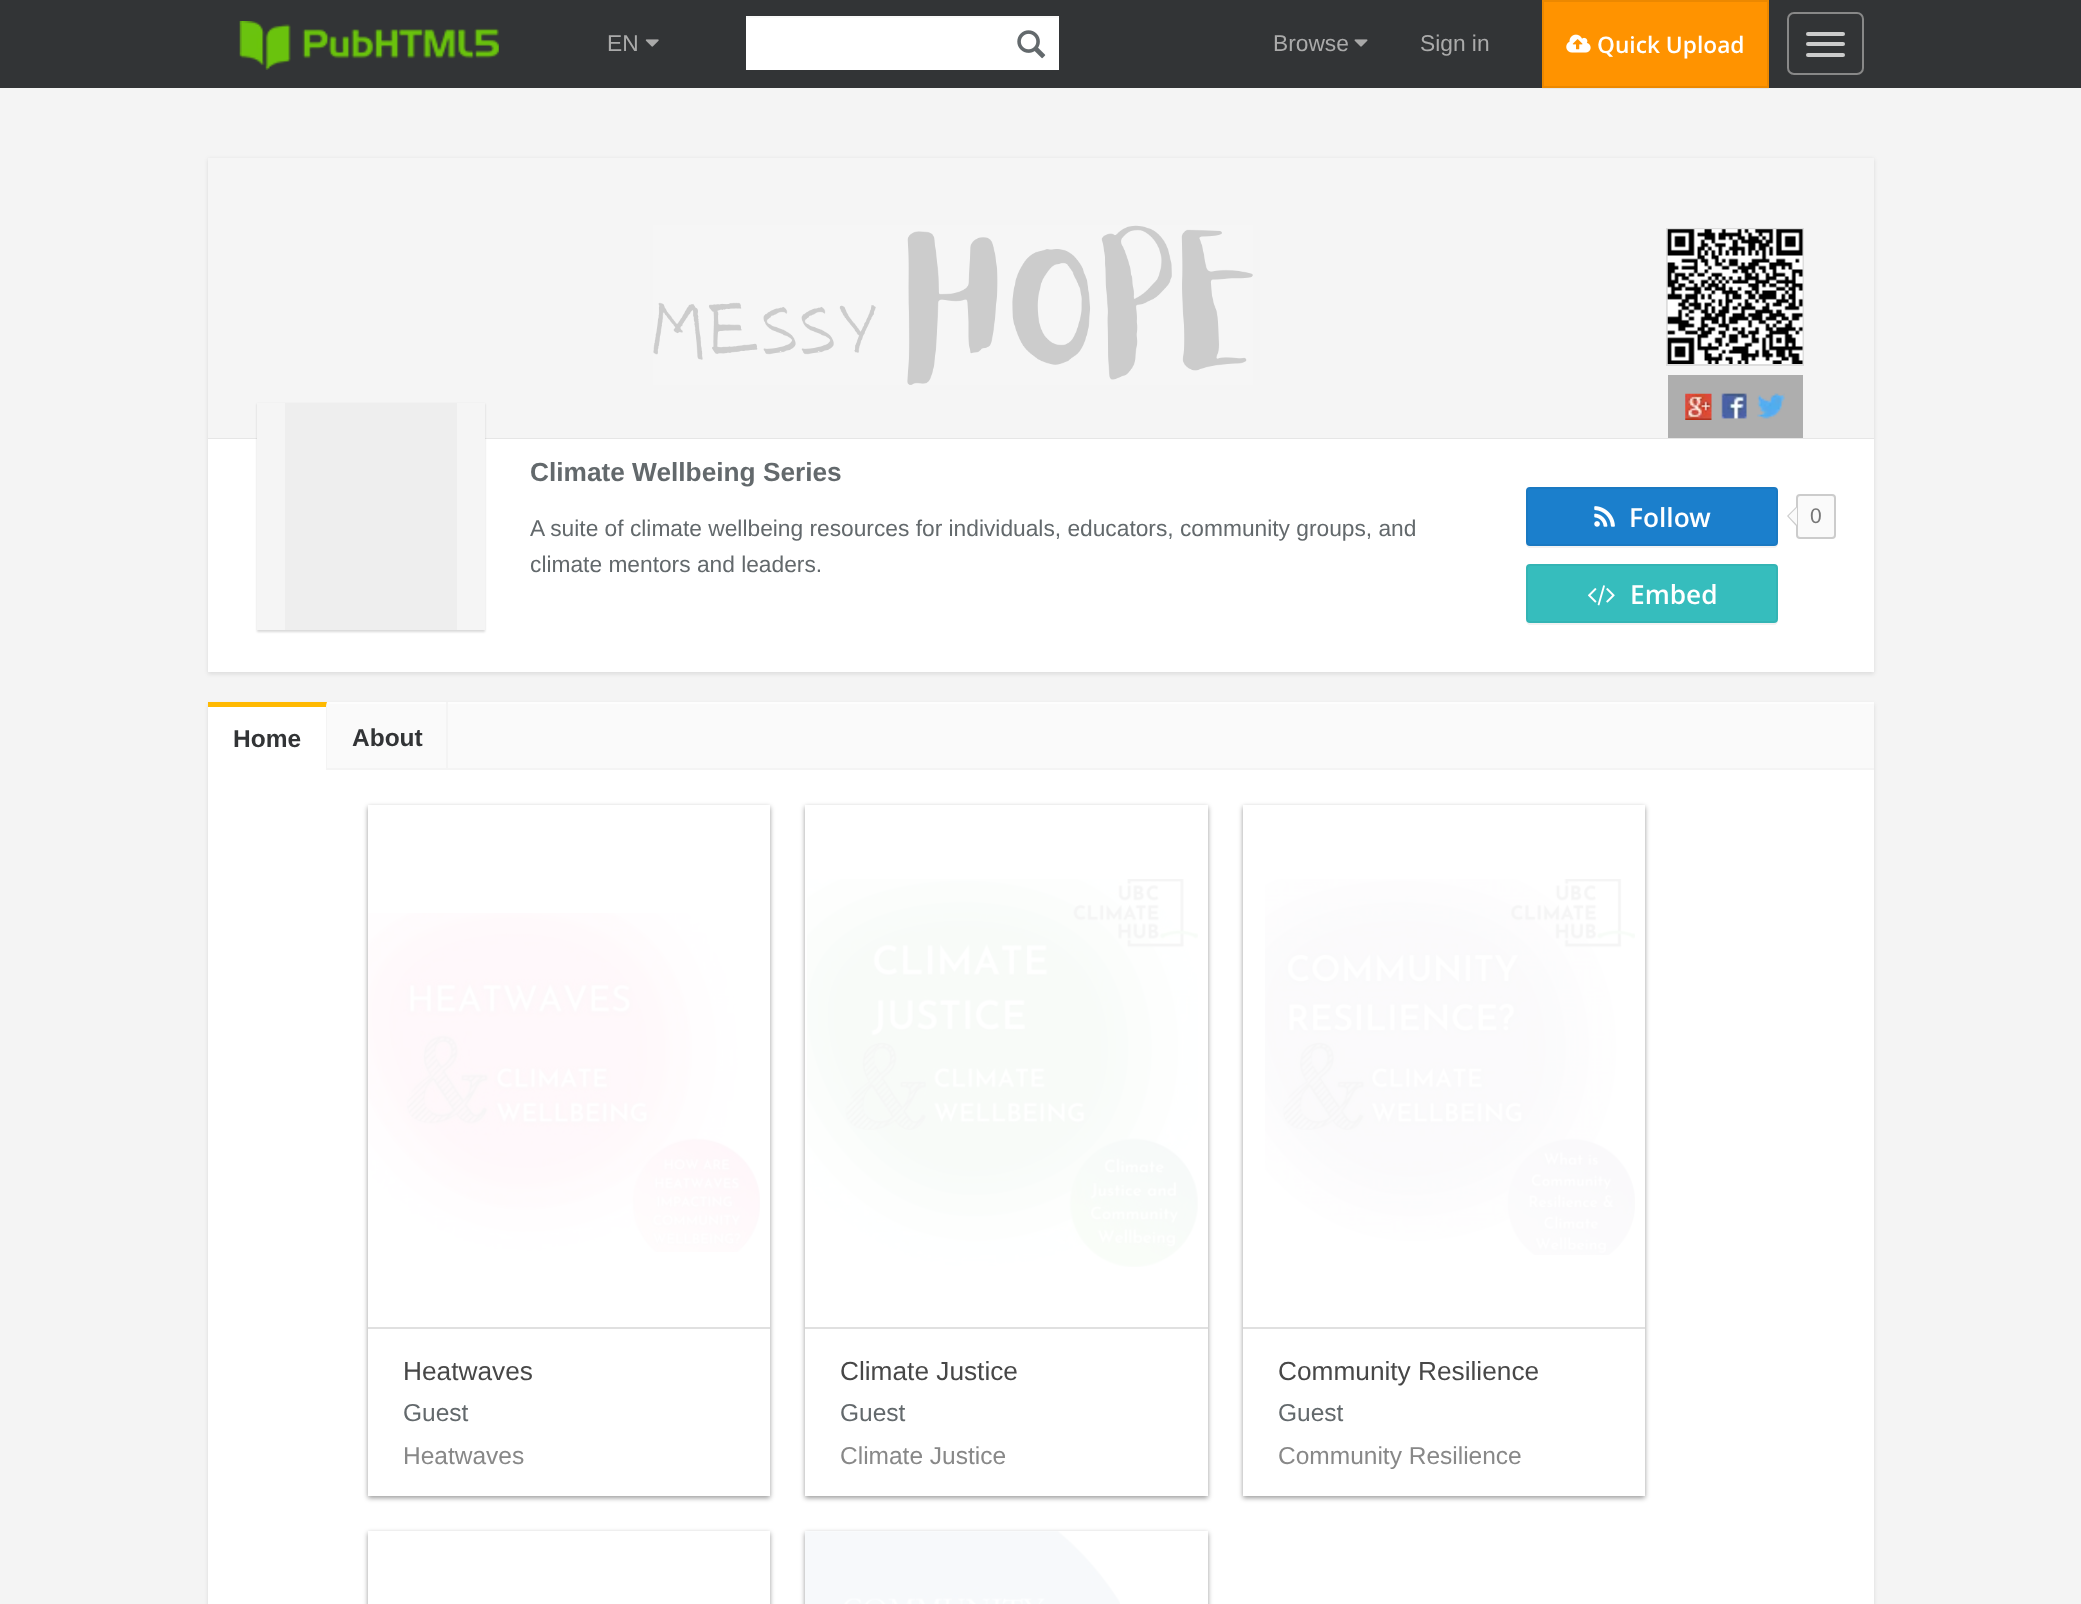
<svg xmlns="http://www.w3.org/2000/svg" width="2081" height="1604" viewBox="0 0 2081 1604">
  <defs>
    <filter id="blur1" x="-50%" y="-200%" width="200%" height="500%"><feGaussianBlur stdDeviation="2"/></filter>
    <filter id="blur2" x="-50%" y="-200%" width="200%" height="500%"><feGaussianBlur stdDeviation="1"/></filter>
    <clipPath id="clip1"><path d="M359 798H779V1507H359ZM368 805H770V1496H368Z" clip-rule="evenodd"/></clipPath>
    <filter id="blur3" x="-50%" y="-200%" width="200%" height="500%"><feGaussianBlur stdDeviation="2.5"/></filter>
    <clipPath id="clip2"><path d="M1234 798H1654V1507H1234ZM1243 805H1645V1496H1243Z" clip-rule="evenodd"/></clipPath>
  </defs>
  <rect width="100%" height="100%" fill="#f4f4f4"/>
  <rect x="0" y="0" width="2081" height="88" fill="#323436"/>
  <image x="239" y="21" width="260" height="49" href="img1.png"/>
  <text x="607" y="51" font-family="Liberation Sans" font-size="22.75" fill="#aaaaaa">EN</text>
  <image x="645" y="39" width="14" height="8" href="img2.png"/>
  <rect x="746" y="18" width="313" height="52" fill="#ffffff"/>
  <rect x="746" y="16" width="313" height="2" fill="#f9f9f9"/>
  <image x="1017" y="30" width="29" height="29" href="img3.png"/>
  <text x="1273" y="51" font-family="Liberation Sans" font-size="22.75" fill="#aaaaaa">Browse</text>
  <image x="1354" y="39" width="14" height="8" href="img4.png"/>
  <text x="1420" y="51" font-family="Liberation Sans" font-size="22.75" fill="#aaaaaa">Sign in</text>
  <rect x="1542" y="88" width="227" height="1" fill="#e8e8e8"/>
  <rect x="1543" y="1" width="225" height="86" fill="#ff9300" stroke="#ec8800" stroke-width="2"/>
  <image x="1566" y="34" width="25" height="19" href="img5.png"/>
  <text x="1597" y="53" font-family="Open Sans" font-size="22.75" font-weight="600" fill="#ffffff">Quick Upload</text>
  <rect x="1788" y="13" width="75" height="61" rx="6" fill="none" stroke="#888888" stroke-width="2"/>
  <rect x="1806" y="32" width="39" height="4" rx="2" fill="#cccccc"/>
  <rect x="1806" y="42" width="39" height="4" rx="2" fill="#cccccc"/>
  <rect x="1806" y="53" width="39" height="4" rx="2" fill="#cccccc"/>
  <rect x="208" y="159" width="1666" height="515" fill="#000000" fill-opacity="0.1" filter="url(#blur1)"/>
  <rect x="208" y="158" width="1666" height="280" fill="#f5f5f5"/>
  <rect x="1667" y="229" width="136" height="136" fill="none" stroke="#dddddd" stroke-width="2"/>
  <image x="1667" y="229" width="136" height="135" href="img6.png"/>
  <rect x="208" y="439" width="1666" height="233" fill="#ffffff"/>
  <path d="M208 159V439H1874V438H208Z" fill="#e6e6e6"/>
  <image x="653" y="225" width="600" height="160" href="img7.png"/>
  <rect x="1668" y="375" width="135" height="63" fill="#aeaeae"/>
  <image x="1685" y="393" width="27" height="27" href="img8.png"/>
  <image x="1721" y="393" width="26" height="26" href="img9.png"/>
  <image x="1757" y="393" width="28" height="26" href="img10.png"/>
  <rect x="257" y="404" width="228" height="228" fill="#000000" fill-opacity="0.15" filter="url(#blur2)"/>
  <rect x="257" y="403" width="228" height="227" fill="#f5f5f5"/>
  <rect x="285" y="403" width="172" height="227" fill="#eeeeee"/>
  <text x="530" y="481" font-family="Liberation Sans" font-size="26.25" font-weight="bold" fill="#63696c">Climate Wellbeing Series</text>
  <text x="530" y="536" font-family="Liberation Sans" font-size="22.75" fill="#63696c">A suite of climate wellbeing resources for individuals, educators, community groups, and</text>
  <text x="530" y="572" font-family="Liberation Sans" font-size="22.75" fill="#63696c">climate mentors and leaders.</text>
  <path d="M1526 542V544C1526 546 1528 548 1530 548H1774C1776 548 1778 546 1778 544V542C1778 544 1776 546 1774 546H1530C1528 546 1526 544 1526 542Z" fill="#f2f2f2"/>
  <rect x="1527" y="488" width="250" height="57" rx="3" fill="#1b7fcc" stroke="#1a79c2" stroke-width="2"/>
  <image x="1594" y="506" width="21" height="21" href="img11.png"/>
  <text x="1629" y="527" font-family="Open Sans" font-size="26.25" font-weight="600" fill="#ffffff">Follow</text>
  <rect x="1797" y="495" width="38" height="43" rx="3" fill="#fafafa" stroke="#cccccc" stroke-width="2"/>
  <path d="M1797 506V527L1787 516Z" fill="#cccccc"/>
  <path d="M1797 507.5V525L1788.5 516Z" fill="#fafafa"/>
  <text x="1810" y="523" font-family="Liberation Sans" font-size="21" fill="#777777">0</text>
  <path d="M1526 620V621C1526 623 1528 625 1530 625H1774C1776 625 1778 623 1778 621V620C1778 621 1776 623 1774 623H1530C1528 623 1526 621 1526 620Z" fill="#f2f2f2"/>
  <rect x="1527" y="565" width="250" height="57" rx="3" fill="#36bdbd" stroke="#33b4b4" stroke-width="2"/>
  <image x="1588" y="585" width="27" height="21" href="img12.png"/>
  <text x="1630" y="604" font-family="Open Sans" font-size="26.25" font-weight="600" fill="#ffffff">Embed</text>
  <rect x="208" y="704" width="1666" height="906" fill="#000000" fill-opacity="0.1" filter="url(#blur1)"/>
  <rect x="208" y="770" width="1666" height="834" fill="#ffffff"/>
  <path d="M208 704V770H1874V768H208Z" fill="#f4f4f4"/>
  <rect x="327" y="704" width="1547" height="64" fill="#fafafa"/>
  <rect x="327" y="702" width="1547" height="2" fill="#fdfdfd"/>
  <rect x="208" y="702" width="119" height="68" fill="#ffffff"/>
  <path d="M208 702H327L326 707H208Z" fill="#ffb901"/>
  <path d="M327 702V770H326V707Z" fill="#f4f4f4"/>
  <text x="233" y="747" font-family="Liberation Sans" font-size="24.5" font-weight="bold" fill="#323436">Home</text>
  <rect x="446" y="702" width="2" height="66" fill="#f4f4f4"/>
  <text x="352" y="746" font-family="Liberation Sans" font-size="24.5" font-weight="bold" fill="#323436">About</text>
  <g clip-path="url(#clip1)">
    <rect x="368" y="807" width="402" height="691" fill="#000000" fill-opacity="0.4" filter="url(#blur3)"/>
  </g>
  <rect x="368" y="1327" width="402" height="2" fill="#e0e0e0"/>
  <image x="368" y="913" width="392" height="339" href="img13.png"/>
  <text x="403" y="1380" font-family="Liberation Sans" font-size="26.25" fill="#474747">Heatwaves</text>
  <text x="403" y="1421" font-family="Liberation Sans" font-size="24.5" fill="#63696c">Guest</text>
  <text x="403" y="1464" font-family="Liberation Sans" font-size="24.5" fill="#888888">Heatwaves</text>
  <rect x="805" y="807" width="403" height="691" fill="#000000" fill-opacity="0.4" filter="url(#blur3)"/>
  <rect x="805" y="805" width="403" height="691" fill="#ffffff"/>
  <rect x="805" y="1327" width="403" height="2" fill="#e0e0e0"/>
  <image x="807" y="879" width="391" height="388" href="img14.png"/>
  <text x="840" y="1380" font-family="Liberation Sans" font-size="26.25" fill="#474747">Climate Justice</text>
  <text x="840" y="1421" font-family="Liberation Sans" font-size="24.5" fill="#63696c">Guest</text>
  <text x="840" y="1464" font-family="Liberation Sans" font-size="24.5" fill="#888888">Climate Justice</text>
  <g clip-path="url(#clip2)">
    <rect x="1243" y="807" width="402" height="691" fill="#000000" fill-opacity="0.4" filter="url(#blur3)"/>
  </g>
  <rect x="1243" y="1327" width="402" height="2" fill="#e0e0e0"/>
  <image x="1265" y="879" width="370" height="376" href="img15.png"/>
  <text x="1278" y="1380" font-family="Liberation Sans" font-size="26.25" fill="#474747">Community Resilience</text>
  <text x="1278" y="1421" font-family="Liberation Sans" font-size="24.5" fill="#63696c">Guest</text>
  <text x="1278" y="1464" font-family="Liberation Sans" font-size="24.5" fill="#888888">Community Resilience</text>
  <rect x="368" y="1533" width="402" height="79" fill="#000000" fill-opacity="0.4" filter="url(#blur3)"/>
  <rect x="368" y="1531" width="402" height="73" fill="#ffffff"/>
  <rect x="805" y="1533" width="403" height="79" fill="#000000" fill-opacity="0.4" filter="url(#blur3)"/>
  <rect x="805" y="1531" width="403" height="73" fill="#ffffff"/>
  <image x="805" y="1531" width="315" height="73" href="img16.png"/>
</svg>
